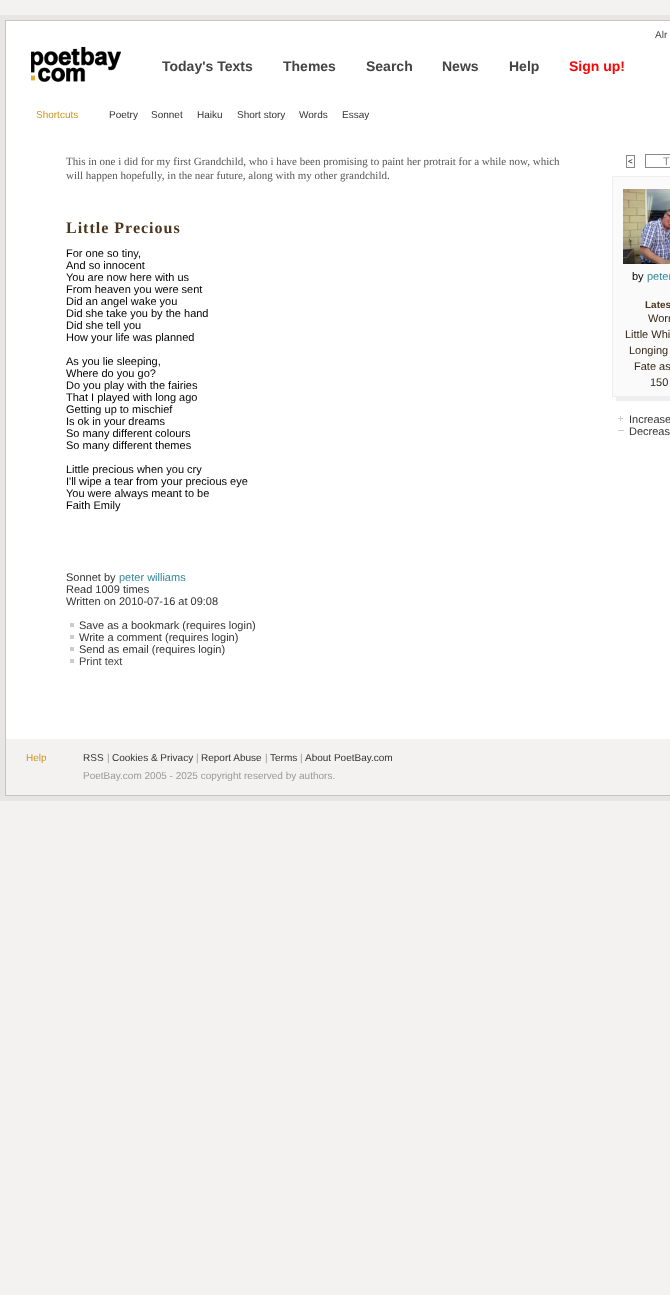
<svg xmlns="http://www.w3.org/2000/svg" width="670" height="1295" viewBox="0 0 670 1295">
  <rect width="100%" height="100%" fill="#f4f2f0"/>
  <rect x="2.5" y="17.5" width="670" height="781" fill="none" stroke="#e8e5e5" stroke-width="5"/>
  <rect x="6" y="21" width="664" height="718" fill="#ffffff"/>
  <rect x="5.5" y="20.5" width="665" height="775" fill="none" stroke="#c4c4c4"/>
  <text x="655" y="38" font-family="Liberation Sans" font-size="10" fill="#444444">Alr</text>
  <image x="31" y="46" width="90" height="36" href="img1.png"/>
  <text x="162" y="71" font-family="Liberation Sans" font-size="14" font-weight="bold" fill="#444444">Today's Texts</text>
  <text x="283" y="71" font-family="Liberation Sans" font-size="14" font-weight="bold" fill="#444444">Themes</text>
  <text x="366" y="71" font-family="Liberation Sans" font-size="14" font-weight="bold" fill="#444444">Search</text>
  <text x="442" y="71" font-family="Liberation Sans" font-size="14" font-weight="bold" fill="#444444">News</text>
  <text x="509" y="71" font-family="Liberation Sans" font-size="14" font-weight="bold" fill="#444444">Help</text>
  <text x="569" y="71" font-family="Liberation Sans" font-size="14" font-weight="bold" fill="#ff0404">Sign up!</text>
  <text x="36" y="118" font-family="Liberation Sans" font-size="10" fill="#ca951b">Shortcuts</text>
  <text x="109" y="118" font-family="Liberation Sans" font-size="10" fill="#333333">Poetry</text>
  <text x="151" y="118" font-family="Liberation Sans" font-size="10" fill="#333333">Sonnet</text>
  <text x="197" y="118" font-family="Liberation Sans" font-size="10" fill="#333333">Haiku</text>
  <text x="237" y="118" font-family="Liberation Sans" font-size="10" fill="#333333">Short story</text>
  <text x="299" y="118" font-family="Liberation Sans" font-size="10" fill="#333333">Words</text>
  <text x="342" y="118" font-family="Liberation Sans" font-size="10" fill="#333333">Essay</text>
  <text x="66" y="165" font-family="Liberation Serif" font-size="11" fill="#555555">This in one i did for my first Grandchild, who i have been promising to paint her protrait for a while now, which</text>
  <text x="66" y="179" font-family="Liberation Serif" font-size="11" fill="#555555">will happen hopefully, in the near future, along with my other grandchild.</text>
  <text x="66" y="233" font-family="Liberation Serif" font-size="16" font-weight="bold" letter-spacing="1" fill="#4c371e">Little Precious</text>
  <text x="66" y="257" font-family="Liberation Sans" font-size="11" fill="#000000">For one so tiny,</text>
  <text x="66" y="269" font-family="Liberation Sans" font-size="11" fill="#000000">And so innocent</text>
  <text x="66" y="281" font-family="Liberation Sans" font-size="11" fill="#000000">You are now here with us</text>
  <text x="66" y="293" font-family="Liberation Sans" font-size="11" fill="#000000">From heaven you were sent</text>
  <text x="66" y="305" font-family="Liberation Sans" font-size="11" fill="#000000">Did an angel wake you</text>
  <text x="66" y="317" font-family="Liberation Sans" font-size="11" fill="#000000">Did she take you by the hand</text>
  <text x="66" y="329" font-family="Liberation Sans" font-size="11" fill="#000000">Did she tell you</text>
  <text x="66" y="341" font-family="Liberation Sans" font-size="11" fill="#000000">How your life was planned</text>
  <text x="66" y="365" font-family="Liberation Sans" font-size="11" fill="#000000">As you lie sleeping,</text>
  <text x="66" y="377" font-family="Liberation Sans" font-size="11" fill="#000000">Where do you go?</text>
  <text x="66" y="389" font-family="Liberation Sans" font-size="11" fill="#000000">Do you play with the fairies</text>
  <text x="66" y="401" font-family="Liberation Sans" font-size="11" fill="#000000">That I played with long ago</text>
  <text x="66" y="413" font-family="Liberation Sans" font-size="11" fill="#000000">Getting up to mischief</text>
  <text x="66" y="425" font-family="Liberation Sans" font-size="11" fill="#000000">Is ok in your dreams</text>
  <text x="66" y="437" font-family="Liberation Sans" font-size="11" fill="#000000">So many different colours</text>
  <text x="66" y="449" font-family="Liberation Sans" font-size="11" fill="#000000">So many different themes</text>
  <text x="66" y="473" font-family="Liberation Sans" font-size="11" fill="#000000">Little precious when you cry</text>
  <text x="66" y="485" font-family="Liberation Sans" font-size="11" fill="#000000">I'll wipe a tear from your precious eye</text>
  <text x="66" y="497" font-family="Liberation Sans" font-size="11" fill="#000000">You were always meant to be</text>
  <text x="66" y="509" font-family="Liberation Sans" font-size="11" fill="#000000">Faith Emily</text>
  <text x="66" y="581" font-family="Liberation Sans" font-size="11" fill="#333333">Sonnet by</text>
  <text x="119" y="581" font-family="Liberation Sans" font-size="11" fill="#338799">peter williams</text>
  <text x="66" y="593" font-family="Liberation Sans" font-size="11" fill="#333333">Read 1009 times</text>
  <text x="66" y="605" font-family="Liberation Sans" font-size="11" fill="#333333">Written on 2010-07-16 at 09:08</text>
  <text x="79" y="629" font-family="Liberation Sans" font-size="11" fill="#333333">Save as a bookmark (requires login)</text>
  <rect x="70" y="623" width="4" height="4" fill="#cccccc"/>
  <text x="79" y="641" font-family="Liberation Sans" font-size="11" fill="#333333">Write a comment (requires login)</text>
  <rect x="70" y="635" width="4" height="4" fill="#cccccc"/>
  <text x="79" y="653" font-family="Liberation Sans" font-size="11" fill="#333333">Send as email (requires login)</text>
  <rect x="70" y="647" width="4" height="4" fill="#cccccc"/>
  <text x="79" y="665" font-family="Liberation Sans" font-size="11" fill="#444444">Print text</text>
  <rect x="70" y="659" width="4" height="4" fill="#cccccc"/>
  <rect x="626.5" y="155.5" width="8" height="12" fill="none" stroke="#888888"/>
  <text x="628" y="164" font-family="Liberation Sans" font-size="8" fill="#000000">&lt;</text>
  <rect x="645.5" y="154.5" width="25" height="13" fill="none" stroke="#888888"/>
  <text x="663" y="165" font-family="Liberation Sans" font-size="11" fill="#888888">T</text>
  <rect x="616" y="397" width="54" height="4" fill="#eeeeee"/>
  <rect x="612.5" y="176.5" width="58" height="220" fill="#fafafa" stroke="#eeeeee"/>
  <image x="623" y="189" width="47" height="75" href="img2.png"/>
  <text x="632" y="280" font-family="Liberation Sans" font-size="11" fill="#000000">by</text>
  <text x="647" y="280" font-family="Liberation Sans" font-size="11" fill="#338799">peter</text>
  <text x="645" y="308" font-family="Liberation Sans" font-size="10" font-weight="bold" fill="#4c371e">Lates</text>
  <text x="648" y="322" font-family="Liberation Sans" font-size="11" fill="#352716">Worr</text>
  <text x="625" y="338" font-family="Liberation Sans" font-size="11" fill="#352716">Little Whi</text>
  <text x="629" y="354" font-family="Liberation Sans" font-size="11" fill="#352716">Longing</text>
  <text x="634" y="370" font-family="Liberation Sans" font-size="11" fill="#352716">Fate as</text>
  <text x="650" y="386" font-family="Liberation Sans" font-size="11" fill="#352716">150</text>
  <image x="618" y="416" width="5" height="5" href="img3.png"/>
  <text x="629" y="423" font-family="Liberation Sans" font-size="11" fill="#333333">Increase</text>
  <text x="629" y="435" font-family="Liberation Sans" font-size="11" fill="#333333">Decreas</text>
  <rect x="618" y="430" width="6" height="1" fill="#cccccc"/>
  <text x="26" y="761" font-family="Liberation Sans" font-size="10" fill="#ca951b">Help</text>
  <text x="83" y="761" font-family="Liberation Sans" font-size="10" fill="#333333">RSS</text>
  <text x="107" y="761" font-family="Liberation Sans" font-size="10" fill="#999999">|</text>
  <text x="112" y="761" font-family="Liberation Sans" font-size="10" fill="#333333">Cookies &amp; Privacy</text>
  <text x="196" y="761" font-family="Liberation Sans" font-size="10" fill="#999999">|</text>
  <text x="201" y="761" font-family="Liberation Sans" font-size="10" fill="#333333">Report Abuse</text>
  <text x="265" y="761" font-family="Liberation Sans" font-size="10" fill="#999999">|</text>
  <text x="270" y="761" font-family="Liberation Sans" font-size="10" fill="#333333">Terms</text>
  <text x="300" y="761" font-family="Liberation Sans" font-size="10" fill="#999999">|</text>
  <text x="305" y="761" font-family="Liberation Sans" font-size="10" fill="#333333">About PoetBay.com</text>
  <text x="83" y="779" font-family="Liberation Sans" font-size="10" fill="#999999">PoetBay.com 2005 - 2025 copyright reserved by authors.</text>
</svg>
